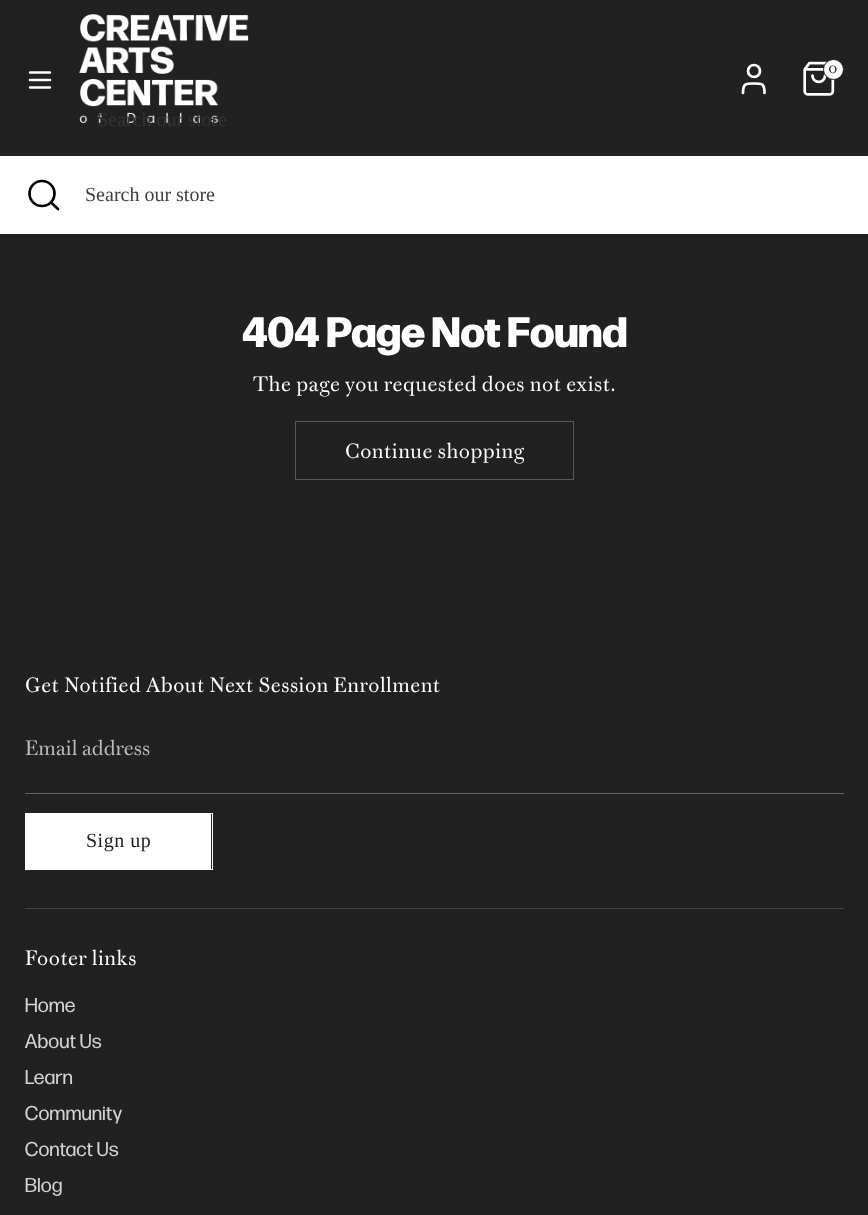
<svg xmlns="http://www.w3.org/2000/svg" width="868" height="1215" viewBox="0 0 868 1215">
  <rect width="100%" height="100%" fill="#212121"/>
  <image x="79" y="14" width="170" height="110" href="img1.png"/>
  <path d="M764.5 93C764.5 83.5 762 83.5 754 83.5C745.5 83.5 743 83.5 743 93" fill="none" stroke="#ffffff" stroke-width="2.7" stroke-linecap="round" stroke-linejoin="round"/>
  <circle cx="754" cy="71" r="6" fill="none" stroke="#ffffff" stroke-width="2.7"/>
  <image x="803" y="61" width="32" height="35" href="img2.png"/>
  <circle cx="833.5" cy="69.5" r="10" fill="#ffffff" stroke="#212121"/>
  <text x="828" y="73" font-family="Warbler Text" font-size="14" fill="#202020">0</text>
  <path d="M30 80H50M30 72.5H50M30 87.5H50" fill="none" stroke="#ffffff" stroke-width="2.5" stroke-linecap="round" stroke-linejoin="round"/>
  <text x="97" y="126" font-family="Liberation Serif" font-size="20" fill="#353535">Search our store</text>
  <rect x="0" y="156" width="868" height="78" fill="#ffffff"/>
  <circle cx="42" cy="193.5" r="12.5" fill="none" stroke="#000000" stroke-width="2.7"/>
  <path d="M58 209L51 202.5" fill="none" stroke="#000000" stroke-width="2.7" stroke-linecap="round" stroke-linejoin="round"/>
  <text x="85" y="201" font-family="Liberation Serif" font-size="20" fill="#404040">Search our store</text>
  <text x="242" y="347" font-family="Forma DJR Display" font-size="42.5" font-weight="bold" fill="#ffffff">404 Page Not Found</text>
  <text x="253" y="391" font-family="Warbler Text" font-size="20" letter-spacing="0.5" fill="#ffffff">The page you requested does not exist.</text>
  <rect x="295.5" y="421.5" width="278" height="58" fill="none" stroke="#595959"/>
  <text x="345" y="458" font-family="Warbler Text" font-size="20" letter-spacing="0.5" fill="#ffffff">Continue shopping</text>
  <text x="25" y="692" font-family="Warbler Text" font-size="20" letter-spacing="0.5" fill="#ffffff">Get Notified About Next Session Enrollment</text>
  <rect x="25" y="793" width="819" height="1" fill="#646464"/>
  <text x="25" y="755" font-family="Warbler Text" font-size="20" fill="#bcbcbc">Email address</text>
  <rect x="25.5" y="813.5" width="187" height="56" fill="none" stroke="#ffffff"/>
  <rect x="26" y="814" width="185" height="55" fill="#ffffff"/>
  <text x="86" y="847" font-family="Liberation Serif" font-size="20" letter-spacing="0.5" fill="#202020">Sign up</text>
  <rect x="25" y="908" width="819" height="1" fill="#424242"/>
  <text x="25" y="965" font-family="Warbler Text" font-size="20" letter-spacing="0.5" fill="#ffffff">Footer links</text>
  <text x="25" y="1012" font-family="Forma DJR Display" font-size="20" letter-spacing="0.5" fill="#d3d3d3">Home</text>
  <text x="25" y="1048" font-family="Forma DJR Display" font-size="20" letter-spacing="0.5" fill="#d3d3d3">About Us</text>
  <text x="25" y="1084" font-family="Forma DJR Display" font-size="20" letter-spacing="0.5" fill="#d3d3d3">Learn</text>
  <text x="25" y="1120" font-family="Forma DJR Display" font-size="20" letter-spacing="0.5" fill="#d3d3d3">Community</text>
  <text x="25" y="1156" font-family="Forma DJR Display" font-size="20" letter-spacing="0.5" fill="#d3d3d3">Contact Us</text>
  <text x="25" y="1192" font-family="Forma DJR Display" font-size="20" letter-spacing="0.5" fill="#d3d3d3">Blog</text>
</svg>
